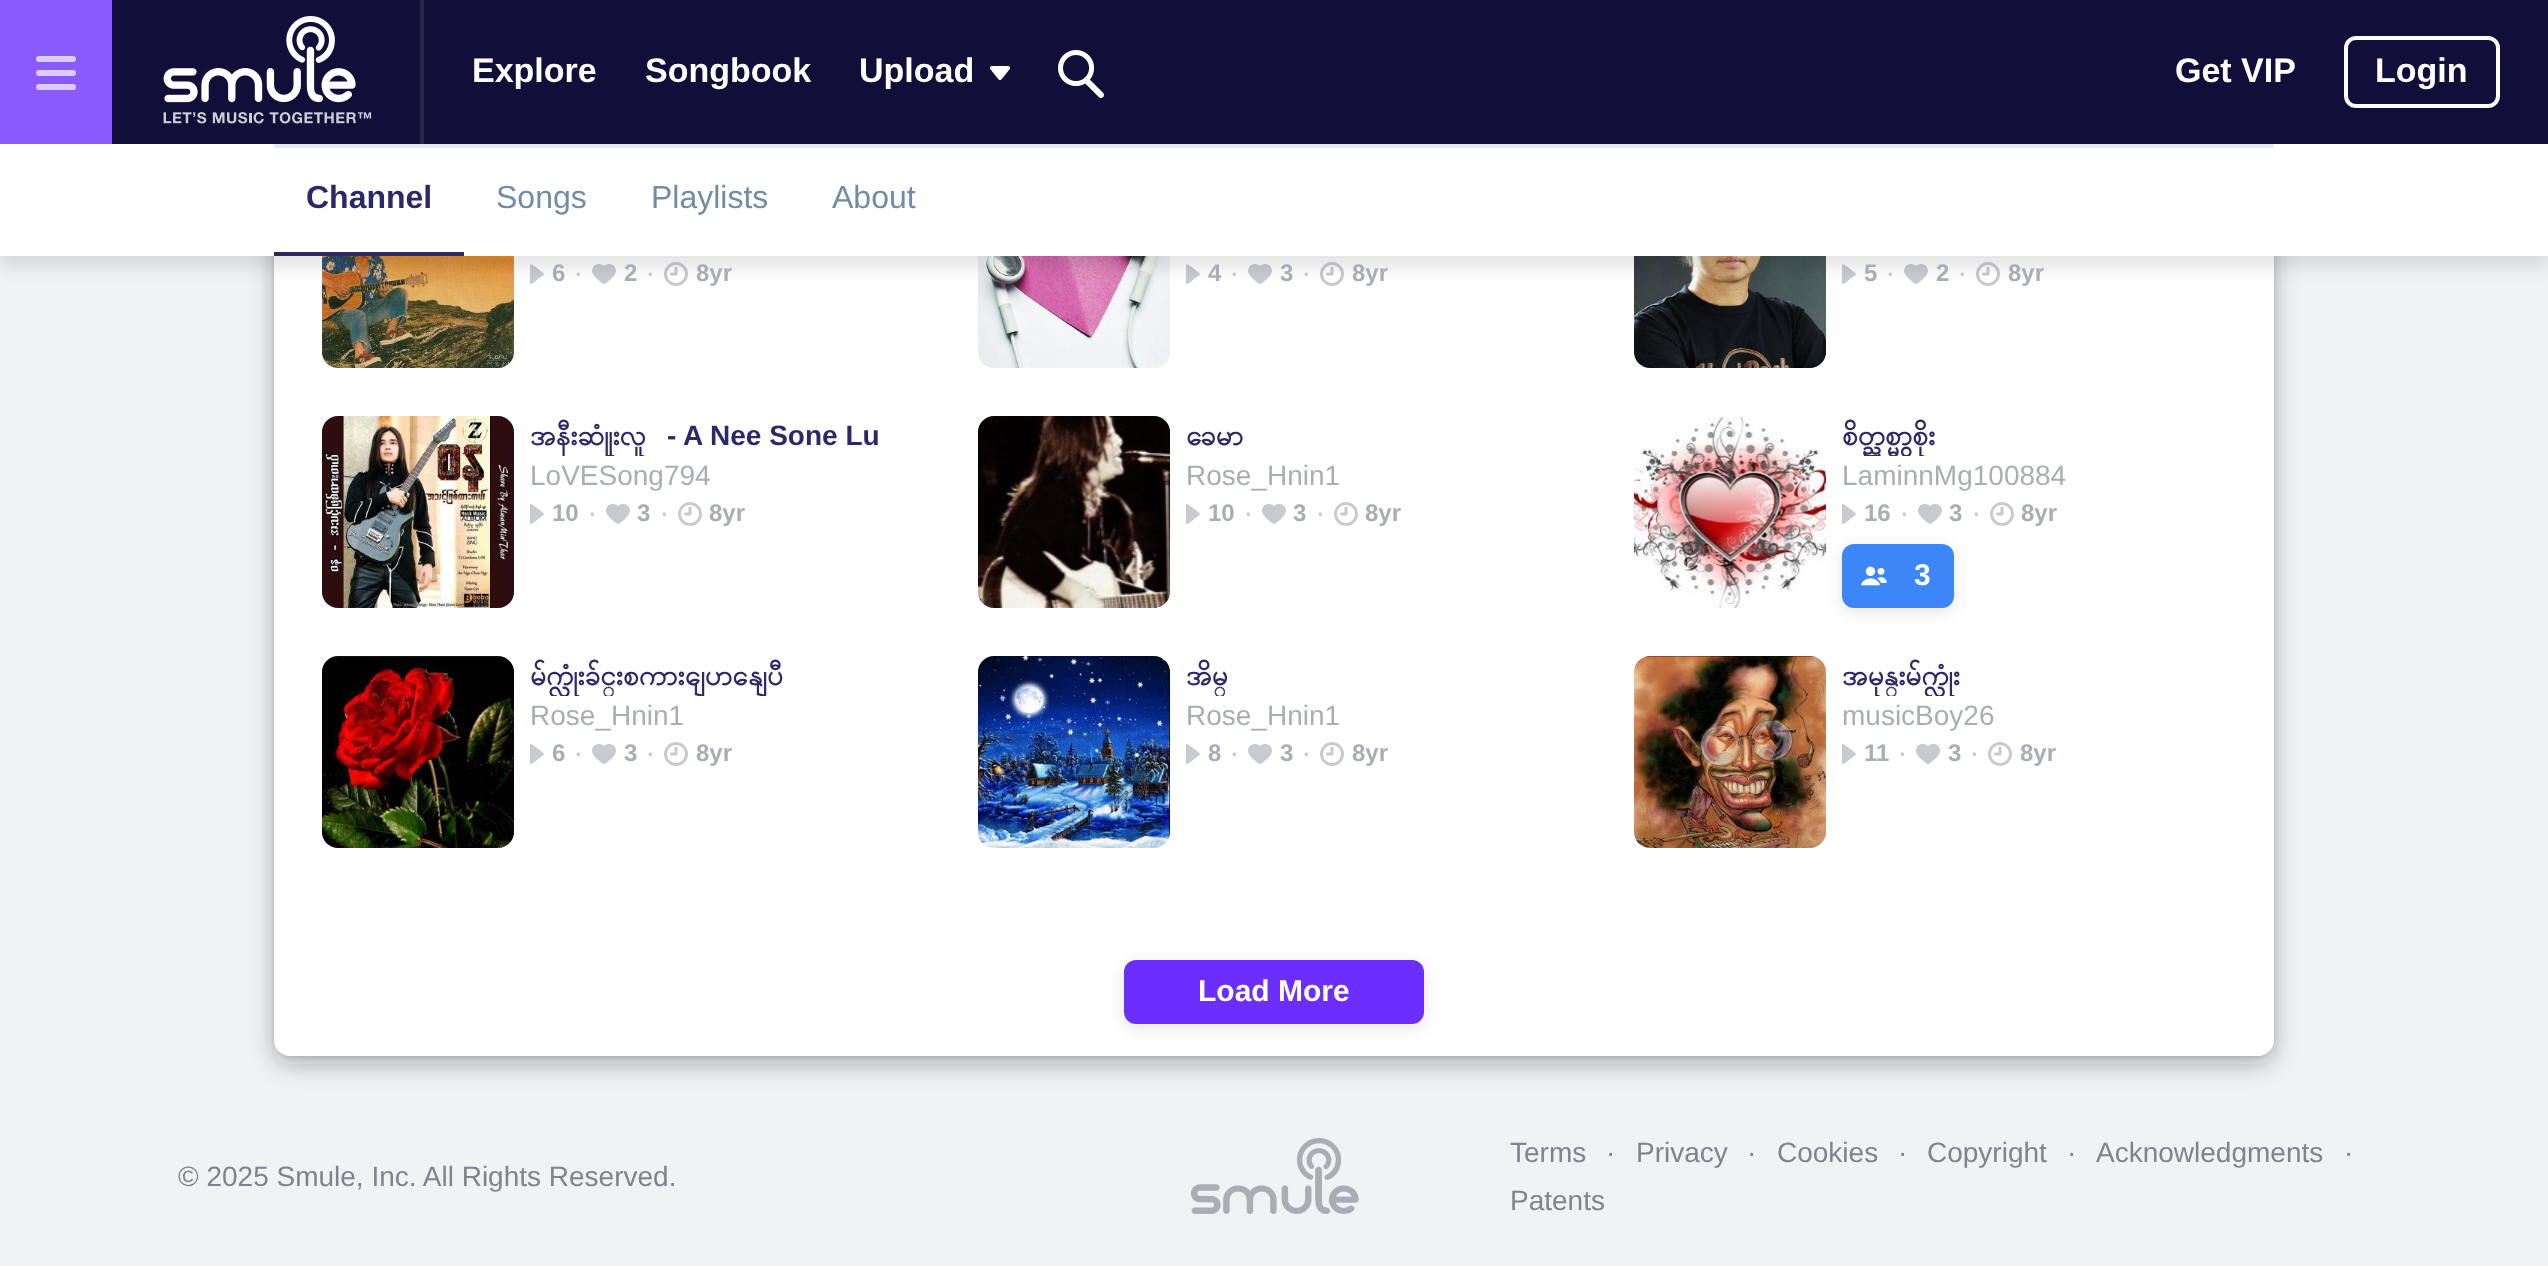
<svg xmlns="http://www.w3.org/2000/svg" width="2548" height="1266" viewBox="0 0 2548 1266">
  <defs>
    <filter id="blur1" x="-50%" y="-200%" width="200%" height="500%"><feGaussianBlur stdDeviation="12"/></filter>
    <filter id="blur2" x="-50%" y="-200%" width="200%" height="500%"><feGaussianBlur stdDeviation="2"/></filter>
    <filter id="blur3" x="-50%" y="-200%" width="200%" height="500%"><feGaussianBlur stdDeviation="8"/></filter>
    <clipPath id="clip1"><rect x="530" y="416" width="366" height="40"/></clipPath>
    <clipPath id="clip2"><rect x="1842" y="416" width="366" height="40"/></clipPath>
    <clipPath id="clip3"><rect x="530" y="656" width="366" height="40"/></clipPath>
    <clipPath id="clip4"><rect x="1186" y="656" width="366" height="40"/></clipPath>
    <clipPath id="clip5"><rect x="1842" y="656" width="366" height="40"/></clipPath>
  </defs>
  <rect width="100%" height="100%" fill="#f0f2f4"/>
  <rect x="274" y="-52" width="2000" height="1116" rx="16" fill="#1f2021" fill-opacity="0.3" filter="url(#blur1)"/>
  <rect x="274" y="-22" width="2000" height="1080" rx="16" fill="#1f2021" fill-opacity="0.1" filter="url(#blur2)"/>
  <rect x="274" y="-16" width="2000" height="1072" rx="16" fill="#ffffff"/>
  <rect x="322" y="176" width="192" height="192" rx="16" fill="#f0f2f4"/>
  <image x="322" y="256" width="192" height="112" href="img4.png"/>
  <image x="530" y="264" width="14" height="20" href="img5.png"/>
  <image x="592" y="264" width="24" height="20" href="img6.png"/>
  <image x="664" y="262" width="24" height="24" href="img7.png"/>
  <rect x="978" y="176" width="192" height="192" rx="16" fill="#f0f2f4"/>
  <image x="978" y="256" width="192" height="112" href="img8.png"/>
  <image x="1186" y="264" width="14" height="20" href="img5.png"/>
  <image x="1248" y="264" width="24" height="20" href="img6.png"/>
  <image x="1320" y="262" width="24" height="24" href="img7.png"/>
  <rect x="1634" y="176" width="192" height="192" rx="16" fill="#f0f2f4"/>
  <image x="1634" y="256" width="192" height="112" href="img9.png"/>
  <image x="1842" y="264" width="14" height="20" href="img5.png"/>
  <image x="1904" y="264" width="24" height="20" href="img6.png"/>
  <image x="1976" y="262" width="24" height="24" href="img7.png"/>
  <rect x="0" y="156" width="2548" height="112" fill="#1f2021" fill-opacity="0.1" filter="url(#blur3)"/>
  <rect x="112" y="0" width="2436" height="144" fill="#110e39"/>
  <rect x="0" y="0" width="112" height="144" fill="#8a59ff"/>
  <rect x="36" y="70" width="40" height="6" rx="3" fill="#dccdff"/>
  <rect x="36" y="56" width="40" height="6" rx="3" fill="#dccdff"/>
  <rect x="36" y="84" width="40" height="6" rx="3" fill="#dccdff"/>
  <image x="163" y="16" width="209" height="108" href="img1.png"/>
  <rect x="420" y="0" width="4" height="144" fill="#29264d"/>
  <text x="472" y="82" font-family="Liberation Sans" font-size="34" font-weight="bold" fill="#ffffff">Explore</text>
  <text x="645" y="82" font-family="Liberation Sans" font-size="34" font-weight="bold" fill="#ffffff">Songbook</text>
  <text x="859" y="82" font-family="Liberation Sans" font-size="34" font-weight="bold" fill="#ffffff">Upload</text>
  <image x="990" y="66" width="20" height="14" href="img2.png"/>
  <image x="1058" y="50" width="46" height="48" href="img3.png"/>
  <text x="2175" y="82" font-family="Liberation Sans" font-size="34" font-weight="bold" fill="#ffffff">Get VIP</text>
  <rect x="2346" y="38" width="152" height="68" rx="10" fill="none" stroke="#ffffff" stroke-width="4"/>
  <text x="2375" y="82" font-family="Liberation Sans" font-size="34" font-weight="bold" fill="#ffffff">Login</text>
  <rect x="0" y="144" width="2548" height="112" fill="#ffffff"/>
  <rect x="274" y="144" width="2000" height="4" fill="#e4e9ee"/>
  <rect x="274" y="252" width="190" height="4" fill="#2d2867"/>
  <text x="306" y="208" font-family="Liberation Sans" font-size="32" font-weight="bold" fill="#2d2867">Channel</text>
  <text x="496" y="208" font-family="Liberation Sans" font-size="32" fill="#728ca6">Songs</text>
  <text x="651" y="208" font-family="Liberation Sans" font-size="32" fill="#728ca6">Playlists</text>
  <text x="832" y="208" font-family="Liberation Sans" font-size="32" fill="#728ca6">About</text>
  <text x="552" y="281" font-family="Liberation Sans" font-size="24" font-weight="bold" fill="#aaadb4">6</text>
  <text x="573" y="283" font-family="Liberation Sans" font-size="32" fill="#c8cacf">·</text>
  <text x="624" y="281" font-family="Liberation Sans" font-size="24" font-weight="bold" fill="#aaadb4">2</text>
  <text x="645" y="283" font-family="Liberation Sans" font-size="32" fill="#c8cacf">·</text>
  <text x="696" y="281" font-family="Liberation Sans" font-size="24" font-weight="bold" fill="#aaadb4">8yr</text>
  <text x="1208" y="281" font-family="Liberation Sans" font-size="24" font-weight="bold" fill="#aaadb4">4</text>
  <text x="1229" y="283" font-family="Liberation Sans" font-size="32" fill="#c8cacf">·</text>
  <text x="1280" y="281" font-family="Liberation Sans" font-size="24" font-weight="bold" fill="#aaadb4">3</text>
  <text x="1301" y="283" font-family="Liberation Sans" font-size="32" fill="#c8cacf">·</text>
  <text x="1352" y="281" font-family="Liberation Sans" font-size="24" font-weight="bold" fill="#aaadb4">8yr</text>
  <text x="1864" y="281" font-family="Liberation Sans" font-size="24" font-weight="bold" fill="#aaadb4">5</text>
  <text x="1885" y="283" font-family="Liberation Sans" font-size="32" fill="#c8cacf">·</text>
  <text x="1936" y="281" font-family="Liberation Sans" font-size="24" font-weight="bold" fill="#aaadb4">2</text>
  <text x="1957" y="283" font-family="Liberation Sans" font-size="32" fill="#c8cacf">·</text>
  <text x="2008" y="281" font-family="Liberation Sans" font-size="24" font-weight="bold" fill="#aaadb4">8yr</text>
  <rect x="322" y="416" width="192" height="192" rx="16" fill="#f0f2f4"/>
  <image x="322" y="416" width="192" height="192" href="img10.png"/>
  <g clip-path="url(#clip1)">
    <text x="530" y="445" font-family="Padauk" font-size="28" font-weight="bold" fill="#2d2867">အနီးဆံုုးလူ</text>
  </g>
  <text x="667" y="445" font-family="Liberation Sans" font-size="28" font-weight="bold" fill="#2d2867">- A Nee Sone Lu</text>
  <text x="530" y="485" font-family="Liberation Sans" font-size="28" fill="#aaadb4">LoVESong794</text>
  <image x="530" y="504" width="14" height="20" href="img5.png"/>
  <text x="552" y="521" font-family="Liberation Sans" font-size="24" font-weight="bold" fill="#aaadb4">10</text>
  <text x="587" y="523" font-family="Liberation Sans" font-size="32" fill="#c8cacf">·</text>
  <image x="606" y="504" width="24" height="20" href="img6.png"/>
  <text x="637" y="521" font-family="Liberation Sans" font-size="24" font-weight="bold" fill="#aaadb4">3</text>
  <text x="659" y="523" font-family="Liberation Sans" font-size="32" fill="#c8cacf">·</text>
  <image x="678" y="502" width="24" height="24" href="img7.png"/>
  <text x="709" y="521" font-family="Liberation Sans" font-size="24" font-weight="bold" fill="#aaadb4">8yr</text>
  <rect x="978" y="416" width="192" height="192" rx="16" fill="#f0f2f4"/>
  <image x="978" y="416" width="192" height="192" href="img11.png"/>
  <text x="1186" y="445" font-family="Padauk" font-size="28" font-weight="bold" fill="#2d2867">ေခမာ</text>
  <text x="1186" y="485" font-family="Liberation Sans" font-size="28" fill="#aaadb4">Rose_Hnin1</text>
  <image x="1186" y="504" width="14" height="20" href="img5.png"/>
  <text x="1208" y="521" font-family="Liberation Sans" font-size="24" font-weight="bold" fill="#aaadb4">10</text>
  <text x="1243" y="523" font-family="Liberation Sans" font-size="32" fill="#c8cacf">·</text>
  <image x="1262" y="504" width="24" height="20" href="img6.png"/>
  <text x="1293" y="521" font-family="Liberation Sans" font-size="24" font-weight="bold" fill="#aaadb4">3</text>
  <text x="1315" y="523" font-family="Liberation Sans" font-size="32" fill="#c8cacf">·</text>
  <image x="1334" y="502" width="24" height="24" href="img7.png"/>
  <text x="1365" y="521" font-family="Liberation Sans" font-size="24" font-weight="bold" fill="#aaadb4">8yr</text>
  <rect x="1634" y="416" width="192" height="192" rx="16" fill="#f0f2f4"/>
  <image x="1634" y="416" width="192" height="192" href="img12.png"/>
  <g clip-path="url(#clip2)">
    <text x="1842" y="445" font-family="Padauk" font-size="28" font-weight="bold" fill="#2d2867">စိတ္ညစ္မွာစိုး</text>
  </g>
  <text x="1842" y="485" font-family="Liberation Sans" font-size="28" fill="#aaadb4">LaminnMg100884</text>
  <image x="1842" y="504" width="14" height="20" href="img5.png"/>
  <text x="1864" y="521" font-family="Liberation Sans" font-size="24" font-weight="bold" fill="#aaadb4">16</text>
  <text x="1899" y="523" font-family="Liberation Sans" font-size="32" fill="#c8cacf">·</text>
  <image x="1918" y="504" width="24" height="20" href="img6.png"/>
  <text x="1949" y="521" font-family="Liberation Sans" font-size="24" font-weight="bold" fill="#aaadb4">3</text>
  <text x="1971" y="523" font-family="Liberation Sans" font-size="32" fill="#c8cacf">·</text>
  <image x="1990" y="502" width="24" height="24" href="img7.png"/>
  <text x="2021" y="521" font-family="Liberation Sans" font-size="24" font-weight="bold" fill="#aaadb4">8yr</text>
  <rect x="1842" y="548" width="112" height="64" rx="12" fill="#1f2021" fill-opacity="0.1" filter="url(#blur3)"/>
  <rect x="1842" y="544" width="112" height="64" rx="12" fill="#3c86f7"/>
  <image x="1861" y="566" width="26" height="20" href="img13.png"/>
  <text x="1914" y="585" font-family="Liberation Sans" font-size="30" font-weight="bold" fill="#ffffff">3</text>
  <rect x="322" y="656" width="192" height="192" rx="16" fill="#f0f2f4"/>
  <image x="322" y="656" width="192" height="192" href="img14.png"/>
  <g clip-path="url(#clip3)">
    <text x="530" y="685" font-family="Padauk" font-size="28" font-weight="bold" fill="#2d2867">မ်က္လံုးခ်င္းစကားေျပာေနျပီ</text>
  </g>
  <text x="530" y="725" font-family="Liberation Sans" font-size="28" fill="#aaadb4">Rose_Hnin1</text>
  <image x="530" y="744" width="14" height="20" href="img5.png"/>
  <text x="552" y="761" font-family="Liberation Sans" font-size="24" font-weight="bold" fill="#aaadb4">6</text>
  <text x="573" y="763" font-family="Liberation Sans" font-size="32" fill="#c8cacf">·</text>
  <image x="592" y="744" width="24" height="20" href="img6.png"/>
  <text x="624" y="761" font-family="Liberation Sans" font-size="24" font-weight="bold" fill="#aaadb4">3</text>
  <text x="645" y="763" font-family="Liberation Sans" font-size="32" fill="#c8cacf">·</text>
  <image x="664" y="742" width="24" height="24" href="img7.png"/>
  <text x="696" y="761" font-family="Liberation Sans" font-size="24" font-weight="bold" fill="#aaadb4">8yr</text>
  <rect x="978" y="656" width="192" height="192" rx="16" fill="#f0f2f4"/>
  <image x="978" y="656" width="192" height="192" href="img15.png"/>
  <g clip-path="url(#clip4)">
    <text x="1186" y="685" font-family="Padauk" font-size="28" font-weight="bold" fill="#2d2867">အိမ္</text>
  </g>
  <text x="1186" y="725" font-family="Liberation Sans" font-size="28" fill="#aaadb4">Rose_Hnin1</text>
  <image x="1186" y="744" width="14" height="20" href="img5.png"/>
  <text x="1208" y="761" font-family="Liberation Sans" font-size="24" font-weight="bold" fill="#aaadb4">8</text>
  <text x="1229" y="763" font-family="Liberation Sans" font-size="32" fill="#c8cacf">·</text>
  <image x="1248" y="744" width="24" height="20" href="img6.png"/>
  <text x="1280" y="761" font-family="Liberation Sans" font-size="24" font-weight="bold" fill="#aaadb4">3</text>
  <text x="1301" y="763" font-family="Liberation Sans" font-size="32" fill="#c8cacf">·</text>
  <image x="1320" y="742" width="24" height="24" href="img7.png"/>
  <text x="1352" y="761" font-family="Liberation Sans" font-size="24" font-weight="bold" fill="#aaadb4">8yr</text>
  <rect x="1634" y="656" width="192" height="192" rx="16" fill="#f0f2f4"/>
  <image x="1634" y="656" width="192" height="192" href="img16.png"/>
  <g clip-path="url(#clip5)">
    <text x="1842" y="685" font-family="Padauk" font-size="28" font-weight="bold" fill="#2d2867">အမုန္းမ်က္လံုး</text>
  </g>
  <text x="1842" y="725" font-family="Liberation Sans" font-size="28" fill="#aaadb4">musicBoy26</text>
  <image x="1842" y="744" width="14" height="20" href="img5.png"/>
  <text x="1864" y="761" font-family="Liberation Sans" font-size="24" font-weight="bold" fill="#aaadb4">11</text>
  <text x="1897" y="763" font-family="Liberation Sans" font-size="32" fill="#c8cacf">·</text>
  <image x="1916" y="744" width="24" height="20" href="img6.png"/>
  <text x="1948" y="761" font-family="Liberation Sans" font-size="24" font-weight="bold" fill="#aaadb4">3</text>
  <text x="1969" y="763" font-family="Liberation Sans" font-size="32" fill="#c8cacf">·</text>
  <image x="1988" y="742" width="24" height="24" href="img7.png"/>
  <text x="2020" y="761" font-family="Liberation Sans" font-size="24" font-weight="bold" fill="#aaadb4">8yr</text>
  <rect x="1124" y="964" width="300" height="64" rx="12" fill="#1f2021" fill-opacity="0.1" filter="url(#blur3)"/>
  <rect x="1124" y="960" width="300" height="64" rx="12" fill="#6c2eff"/>
  <text x="1198" y="1001" font-family="Liberation Sans" font-size="30" font-weight="bold" fill="#ffffff">Load More</text>
  <text x="178" y="1186" font-family="Liberation Sans" font-size="28" fill="#81838c">© 2025 Smule, Inc. All Rights Reserved.</text>
  <image x="1190" y="1138" width="169" height="76" href="img17.png"/>
  <text x="1510" y="1162" font-family="Liberation Sans" font-size="28" fill="#81838c">Terms</text>
  <text x="1606" y="1162" font-family="Liberation Sans" font-size="28" fill="#81838c">·</text>
  <text x="1636" y="1162" font-family="Liberation Sans" font-size="28" fill="#81838c">Privacy</text>
  <text x="1747" y="1162" font-family="Liberation Sans" font-size="28" fill="#81838c">·</text>
  <text x="1777" y="1162" font-family="Liberation Sans" font-size="28" fill="#81838c">Cookies</text>
  <text x="1898" y="1162" font-family="Liberation Sans" font-size="28" fill="#81838c">·</text>
  <text x="1927" y="1162" font-family="Liberation Sans" font-size="28" fill="#81838c">Copyright</text>
  <text x="2067" y="1162" font-family="Liberation Sans" font-size="28" fill="#81838c">·</text>
  <text x="2096" y="1162" font-family="Liberation Sans" font-size="28" fill="#81838c">Acknowledgments</text>
  <text x="2344" y="1162" font-family="Liberation Sans" font-size="28" fill="#81838c">·</text>
  <text x="1510" y="1210" font-family="Liberation Sans" font-size="28" fill="#81838c">Patents</text>
</svg>
